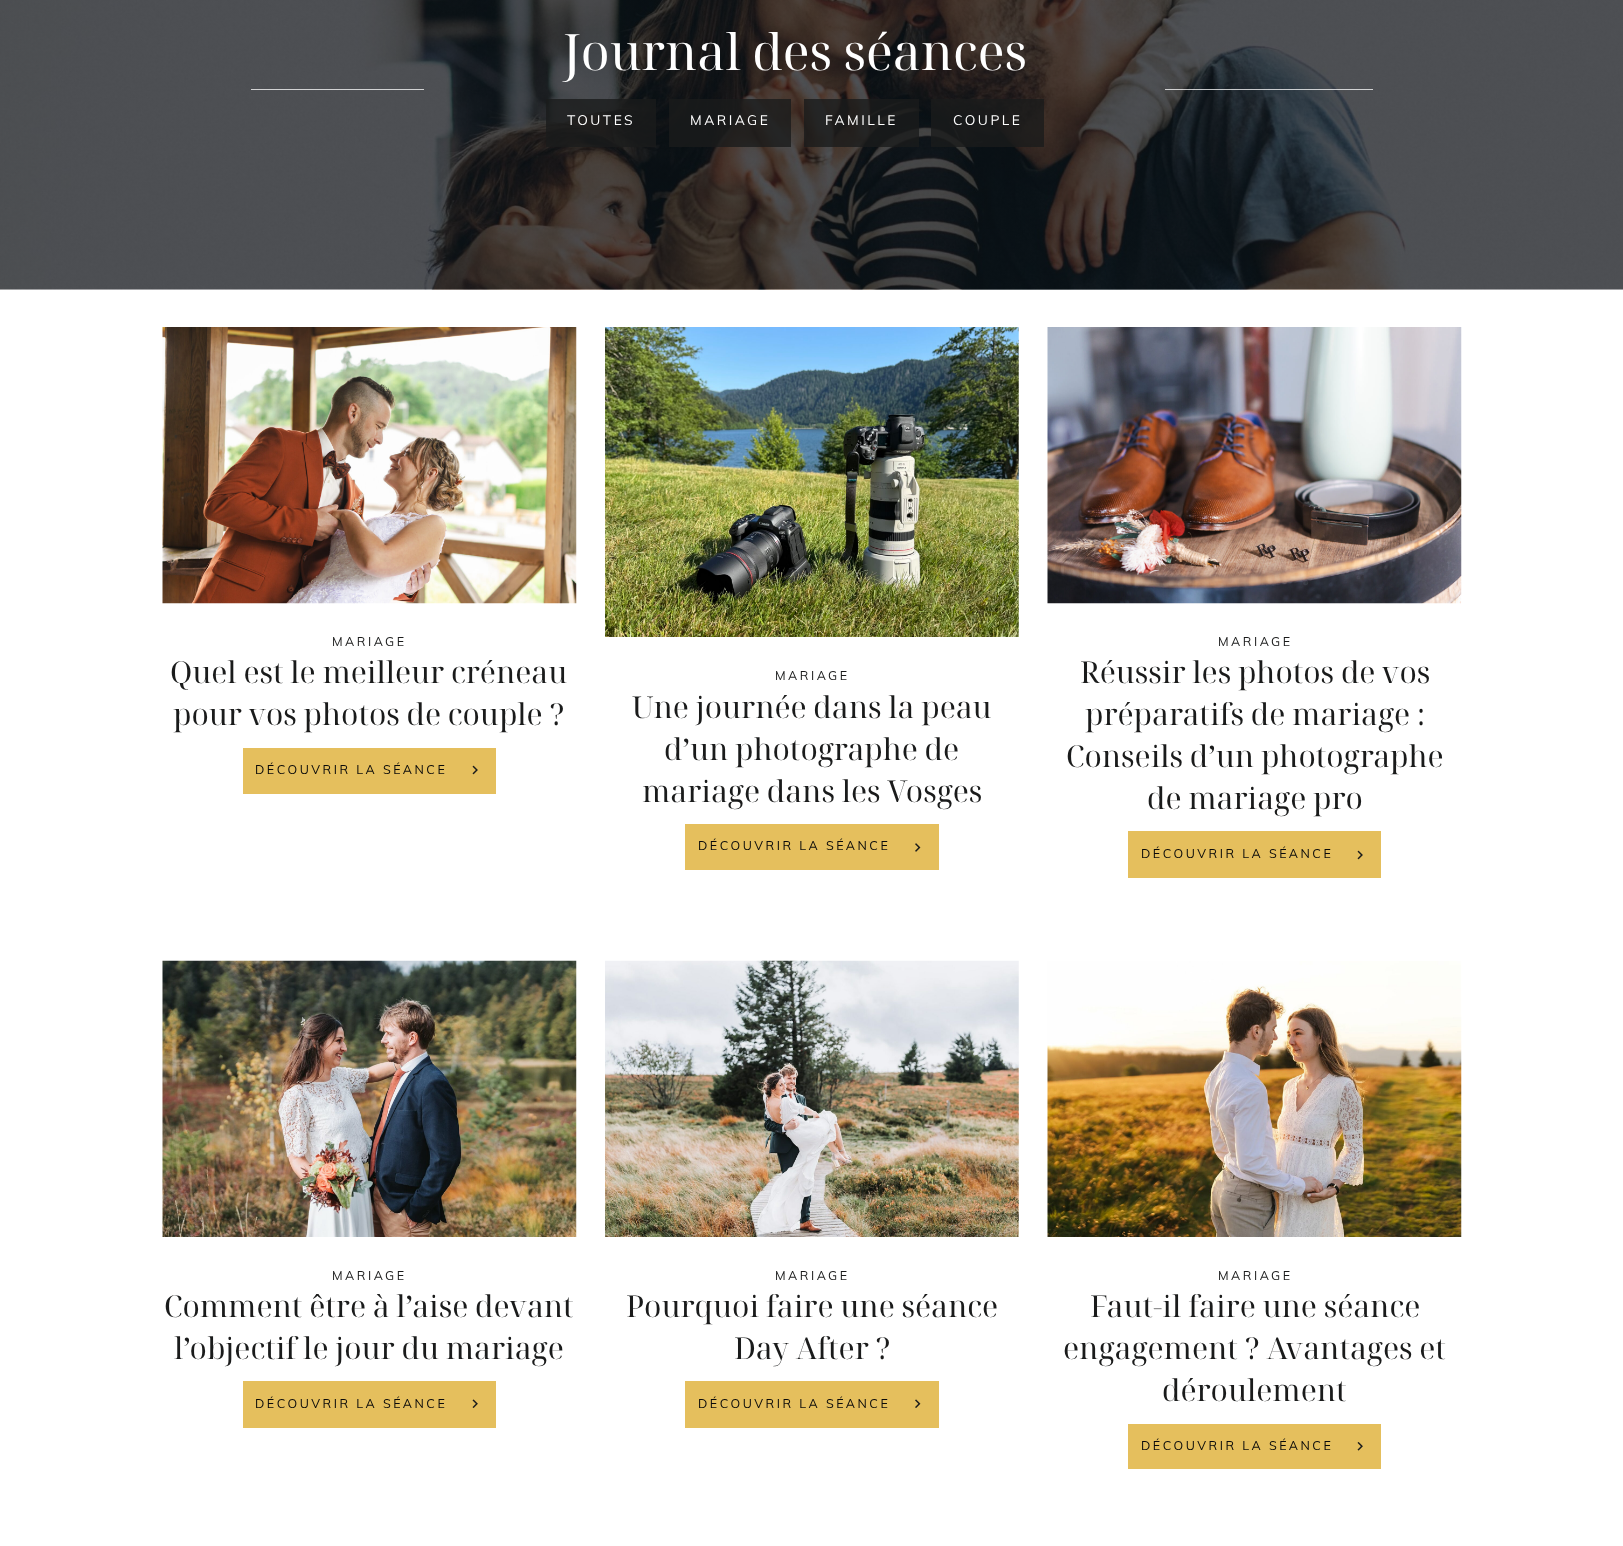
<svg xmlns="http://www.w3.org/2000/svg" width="1623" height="1546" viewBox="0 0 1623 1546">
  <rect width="100%" height="100%" fill="#ffffff"/>
  <image x="0" y="0" width="1623" height="290" href="img1.png"/>
  <rect x="251" y="89" width="173" height="1" fill="#ffffff" fill-opacity="0.75"/>
  <text x="563" y="70" font-family="Noto Serif Display" font-size="50" fill="#ffffff">Journal des séances</text>
  <rect x="546" y="99" width="110" height="45" fill="#1a1b1b" fill-opacity="0.8"/>
  <rect x="546" y="144" width="110" height="3" fill="#1a1b1b" fill-opacity="0.8"/>
  <text x="567" y="125" font-family="Muli" font-size="13.75" letter-spacing="2.5" fill="#ffffff">TOUTES</text>
  <rect x="669" y="99" width="122" height="45" fill="#1a1b1b" fill-opacity="0.8"/>
  <rect x="669" y="144" width="122" height="3" fill="#1a1b1b" fill-opacity="0.8"/>
  <text x="690" y="125" font-family="Muli" font-size="13.75" letter-spacing="2.5" fill="#ffffff">MARIAGE</text>
  <rect x="804" y="99" width="115" height="45" fill="#1a1b1b" fill-opacity="0.8"/>
  <rect x="804" y="144" width="115" height="3" fill="#1a1b1b" fill-opacity="0.8"/>
  <text x="825" y="125" font-family="Muli" font-size="13.75" letter-spacing="2.5" fill="#ffffff">FAMILLE</text>
  <rect x="931" y="99" width="113" height="45" fill="#1a1b1b" fill-opacity="0.8"/>
  <rect x="931" y="144" width="113" height="3" fill="#1a1b1b" fill-opacity="0.8"/>
  <text x="953" y="125" font-family="Muli" font-size="13.75" letter-spacing="2.5" fill="#ffffff">COUPLE</text>
  <rect x="1165" y="89" width="208" height="1" fill="#ffffff" fill-opacity="0.75"/>
  <image x="162" y="327" width="415" height="277" href="img2.png"/>
  <text x="332" y="646" font-family="Muli" font-size="12.5" letter-spacing="2.5" fill="#1a1b1b">MARIAGE</text>
  <text x="170" y="683" font-family="Noto Serif Display" font-size="30" fill="#1a1b1b">Quel est le meilleur créneau</text>
  <text x="173" y="725" font-family="Noto Serif Display" font-size="30" fill="#1a1b1b">pour vos photos de couple ?</text>
  <rect x="243" y="748" width="253" height="46" fill="#e5bf5d"/>
  <text x="255" y="774" font-family="Muli" font-size="12.5" letter-spacing="2.5" fill="#0a0a0a">DÉCOUVRIR LA SÉANCE</text>
  <image x="472" y="765" width="6" height="10" href="img3.png"/>
  <image x="605" y="327" width="414" height="310" href="img4.png"/>
  <text x="775" y="680" font-family="Muli" font-size="12.5" letter-spacing="2.5" fill="#1a1b1b">MARIAGE</text>
  <text x="632" y="718" font-family="Noto Serif Display" font-size="30" fill="#1a1b1b">Une journée dans la peau</text>
  <text x="664" y="760" font-family="Noto Serif Display" font-size="30" fill="#1a1b1b">d’un photographe de</text>
  <text x="642" y="802" font-family="Noto Serif Display" font-size="30" fill="#1a1b1b">mariage dans les Vosges</text>
  <rect x="685" y="824" width="254" height="46" fill="#e5bf5d"/>
  <text x="698" y="850" font-family="Muli" font-size="12.5" letter-spacing="2.5" fill="#0a0a0a">DÉCOUVRIR LA SÉANCE</text>
  <image x="915" y="843" width="6" height="9" href="img5.png"/>
  <image x="1047" y="327" width="415" height="277" href="img6.png"/>
  <text x="1218" y="646" font-family="Muli" font-size="12.5" letter-spacing="2.5" fill="#1a1b1b">MARIAGE</text>
  <text x="1080" y="683" font-family="Noto Serif Display" font-size="30" fill="#1a1b1b">Réussir les photos de vos</text>
  <text x="1085" y="725" font-family="Noto Serif Display" font-size="30" fill="#1a1b1b">préparatifs de mariage :</text>
  <text x="1066" y="767" font-family="Noto Serif Display" font-size="30" fill="#1a1b1b">Conseils d’un photographe</text>
  <text x="1147" y="809" font-family="Noto Serif Display" font-size="30" fill="#1a1b1b">de mariage pro</text>
  <rect x="1128" y="831" width="253" height="47" fill="#e5bf5d"/>
  <text x="1141" y="858" font-family="Muli" font-size="12.5" letter-spacing="2.5" fill="#0a0a0a">DÉCOUVRIR LA SÉANCE</text>
  <image x="1357" y="850" width="6" height="10" href="img3.png"/>
  <image x="162" y="960" width="415" height="277" href="img7.png"/>
  <text x="332" y="1280" font-family="Muli" font-size="12.5" letter-spacing="2.5" fill="#1a1b1b">MARIAGE</text>
  <text x="164" y="1317" font-family="Noto Serif Display" font-size="30" fill="#1a1b1b">Comment être à l’aise devant</text>
  <text x="174" y="1359" font-family="Noto Serif Display" font-size="30" fill="#1a1b1b">l’objectif le jour du mariage</text>
  <rect x="243" y="1381" width="253" height="47" fill="#e5bf5d"/>
  <text x="255" y="1408" font-family="Muli" font-size="12.5" letter-spacing="2.5" fill="#0a0a0a">DÉCOUVRIR LA SÉANCE</text>
  <image x="472" y="1399" width="6" height="9" href="img8.png"/>
  <image x="605" y="960" width="414" height="277" href="img9.png"/>
  <text x="775" y="1280" font-family="Muli" font-size="12.5" letter-spacing="2.5" fill="#1a1b1b">MARIAGE</text>
  <text x="626" y="1317" font-family="Noto Serif Display" font-size="30" fill="#1a1b1b">Pourquoi faire une séance</text>
  <text x="734" y="1359" font-family="Noto Serif Display" font-size="30" fill="#1a1b1b">Day After ?</text>
  <rect x="685" y="1381" width="254" height="47" fill="#e5bf5d"/>
  <text x="698" y="1408" font-family="Muli" font-size="12.5" letter-spacing="2.5" fill="#0a0a0a">DÉCOUVRIR LA SÉANCE</text>
  <image x="915" y="1399" width="6" height="9" href="img10.png"/>
  <image x="1047" y="961" width="415" height="276" href="img11.png"/>
  <text x="1218" y="1280" font-family="Muli" font-size="12.5" letter-spacing="2.5" fill="#1a1b1b">MARIAGE</text>
  <text x="1090" y="1317" font-family="Noto Serif Display" font-size="30" fill="#1a1b1b">Faut-il faire une séance</text>
  <text x="1063" y="1359" font-family="Noto Serif Display" font-size="30" fill="#1a1b1b">engagement ? Avantages et</text>
  <text x="1162" y="1401" font-family="Noto Serif Display" font-size="30" fill="#1a1b1b">déroulement</text>
  <rect x="1128" y="1424" width="253" height="45" fill="#e5bf5d"/>
  <text x="1141" y="1450" font-family="Muli" font-size="12.5" letter-spacing="2.5" fill="#0a0a0a">DÉCOUVRIR LA SÉANCE</text>
  <image x="1357" y="1442" width="6" height="9" href="img12.png"/>
</svg>
